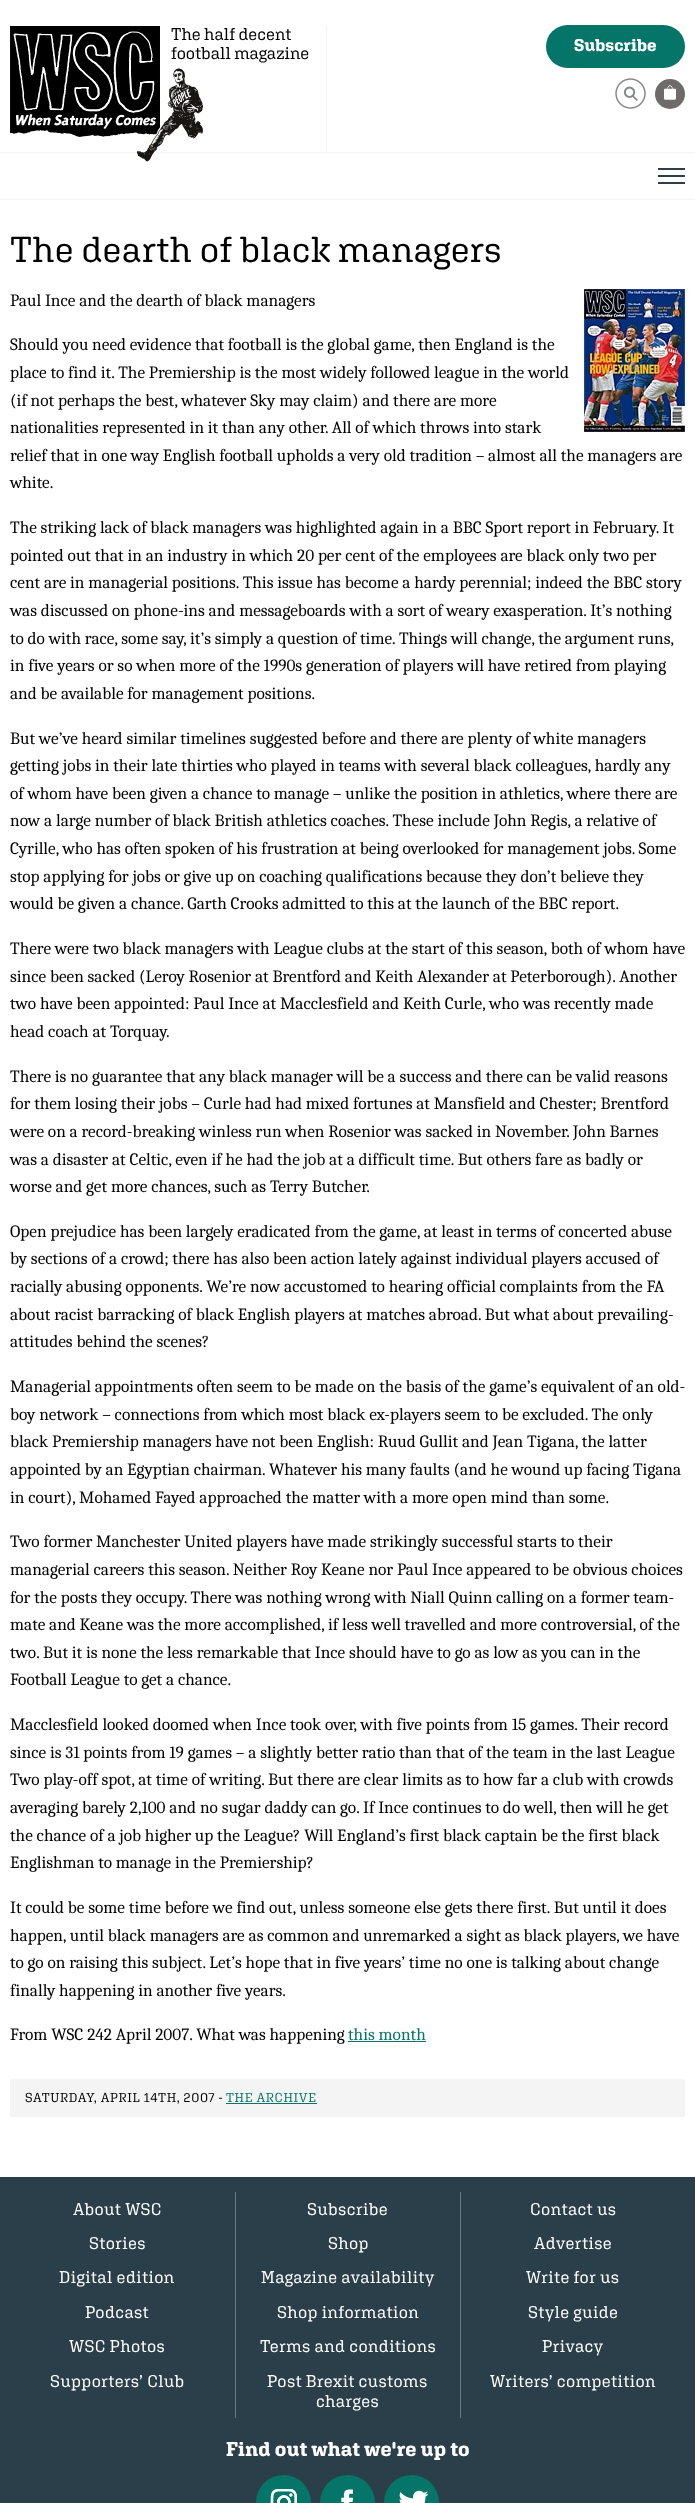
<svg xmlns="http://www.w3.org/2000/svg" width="695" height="2503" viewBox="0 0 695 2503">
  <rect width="100%" height="100%" fill="#ffffff"/>
  <image x="10" y="26" width="150" height="111" href="img1.png"/>
  <rect x="326" y="25" width="1" height="127" fill="#f4f4f4"/>
  <text x="171" y="40" font-family="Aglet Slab" font-size="17" fill="#000000">The half decent</text>
  <text x="171" y="59" font-family="Aglet Slab" font-size="17" fill="#000000">football magazine</text>
  <rect x="0" y="152" width="695" height="1" fill="#f4f4f4"/>
  <image x="137" y="68" width="66" height="94" href="img2.png"/>
  <rect x="546" y="25" width="139" height="43" rx="21.5" fill="#067569"/>
  <text x="574" y="51" font-family="Aglet Slab" font-size="17" font-weight="bold" fill="#ffffff">Subscribe</text>
  <image x="615" y="78" width="31" height="31" href="img3.png"/>
  <circle cx="670" cy="94" r="15" fill="#6f6b6b"/>
  <image x="664" y="85" width="12" height="15" href="img4.png"/>
  <rect x="0" y="199" width="695" height="1" fill="#f4f4f4"/>
  <rect x="658" y="168" width="27" height="2" fill="#2b3f4b"/>
  <rect x="658" y="175" width="27" height="2" fill="#2b3f4b"/>
  <rect x="658" y="182" width="27" height="2" fill="#2b3f4b"/>
  <text x="10" y="262" font-family="Aglet Slab" font-size="36" letter-spacing="0.35" fill="#000000">The dearth of black managers</text>
  <text x="10" y="306" font-family="Caladea" font-size="17.3" fill="#000000">Paul Ince and the dearth of black managers</text>
  <image x="584" y="289" width="101" height="143" href="img5.png"/>
  <text x="10" y="350" font-family="Caladea" font-size="17.3" fill="#000000">Should you need evidence that football is the global game, then England is the</text>
  <text x="10" y="378" font-family="Caladea" font-size="17.3" fill="#000000">place to find it. The Premiership is the most widely followed league in the world</text>
  <text x="10" y="406" font-family="Caladea" font-size="17.3" fill="#000000">(if not perhaps the best, whatever Sky may claim) and there are more</text>
  <text x="10" y="433" font-family="Caladea" font-size="17.3" fill="#000000">nationalities represented in it than any other. All of which throws into stark</text>
  <text x="10" y="461" font-family="Caladea" font-size="17.3" fill="#000000">relief that in one way English football upholds a very old tradition – almost all the managers are</text>
  <text x="10" y="488" font-family="Caladea" font-size="17.3" fill="#000000">white.</text>
  <text x="10" y="533" font-family="Caladea" font-size="17.3" fill="#000000">The striking lack of black managers was highlighted again in a BBC Sport report in February. It</text>
  <text x="10" y="561" font-family="Caladea" font-size="17.3" fill="#000000">pointed out that in an industry in which 20 per cent of the employees are black only two per</text>
  <text x="10" y="588" font-family="Caladea" font-size="17.3" fill="#000000">cent are in managerial positions. This issue has become a hardy perennial; indeed the BBC story</text>
  <text x="10" y="616" font-family="Caladea" font-size="17.3" fill="#000000">was discussed on phone-ins and messageboards with a sort of weary exasperation. It’s nothing</text>
  <text x="10" y="644" font-family="Caladea" font-size="17.3" fill="#000000">to do with race, some say, it’s simply a question of time. Things will change, the argument runs,</text>
  <text x="10" y="671" font-family="Caladea" font-size="17.3" fill="#000000">in five years or so when more of the 1990s generation of players will have retired from playing</text>
  <text x="10" y="699" font-family="Caladea" font-size="17.3" fill="#000000">and be available for management positions.</text>
  <text x="10" y="744" font-family="Caladea" font-size="17.3" fill="#000000">But we’ve heard similar timelines suggested before and there are plenty of white managers</text>
  <text x="10" y="771" font-family="Caladea" font-size="17.3" fill="#000000">getting jobs in their late thirties who played in teams with several black colleagues, hardly any</text>
  <text x="10" y="799" font-family="Caladea" font-size="17.3" fill="#000000">of whom have been given a chance to manage – unlike the position in athletics, where there are</text>
  <text x="10" y="826" font-family="Caladea" font-size="17.3" fill="#000000">now a large number of black British athletics coaches. These include John Regis, a relative of</text>
  <text x="10" y="854" font-family="Caladea" font-size="17.3" fill="#000000">Cyrille, who has often spoken of his frustration at being overlooked for management jobs. Some</text>
  <text x="10" y="882" font-family="Caladea" font-size="17.3" fill="#000000">stop applying for jobs or give up on coaching qualifications because they don’t believe they</text>
  <text x="10" y="909" font-family="Caladea" font-size="17.3" fill="#000000">would be given a chance. Garth Crooks admitted to this at the launch of the BBC report.</text>
  <text x="10" y="954" font-family="Caladea" font-size="17.3" fill="#000000">There were two black managers with League clubs at the start of this season, both of whom have</text>
  <text x="10" y="982" font-family="Caladea" font-size="17.3" fill="#000000">since been sacked (Leroy Rosenior at Brentford and Keith Alexander at Peterborough). Another</text>
  <text x="10" y="1009" font-family="Caladea" font-size="17.3" fill="#000000">two have been appointed: Paul Ince at Macclesfield and Keith Curle, who was recently made</text>
  <text x="10" y="1037" font-family="Caladea" font-size="17.3" fill="#000000">head coach at Torquay.</text>
  <text x="10" y="1082" font-family="Caladea" font-size="17.3" fill="#000000">There is no guarantee that any black manager will be a success and there can be valid reasons</text>
  <text x="10" y="1109" font-family="Caladea" font-size="17.3" fill="#000000">for them losing their jobs – Curle had had mixed fortunes at Mansfield and Chester; Brentford</text>
  <text x="10" y="1137" font-family="Caladea" font-size="17.3" fill="#000000">were on a record-breaking winless run when Rosenior was sacked in November. John Barnes</text>
  <text x="10" y="1165" font-family="Caladea" font-size="17.3" fill="#000000">was a disaster at Celtic, even if he had the job at a difficult time. But others fare as badly or</text>
  <text x="10" y="1192" font-family="Caladea" font-size="17.3" fill="#000000">worse and get more chances, such as Terry Butcher.</text>
  <text x="10" y="1237" font-family="Caladea" font-size="17.3" fill="#000000">Open prejudice has been largely eradicated from the game, at least in terms of concerted abuse</text>
  <text x="10" y="1264" font-family="Caladea" font-size="17.3" fill="#000000">by sections of a crowd; there has also been action lately against individual players accused of</text>
  <text x="10" y="1292" font-family="Caladea" font-size="17.3" fill="#000000">racially abusing opponents. We’re now accustomed to hearing official complaints from the FA</text>
  <text x="10" y="1320" font-family="Caladea" font-size="17.3" fill="#000000">about racist barracking of black English players at matches abroad. But what about prevailing-</text>
  <text x="10" y="1347" font-family="Caladea" font-size="17.3" fill="#000000">attitudes behind the scenes?</text>
  <text x="10" y="1392" font-family="Caladea" font-size="17.3" fill="#000000">Managerial appointments often seem to be made on the basis of the game’s equivalent of an old-</text>
  <text x="10" y="1420" font-family="Caladea" font-size="17.3" fill="#000000">boy network – connections from which most black ex-players seem to be excluded. The only</text>
  <text x="10" y="1447" font-family="Caladea" font-size="17.3" fill="#000000">black Premiership managers have not been English: Ruud Gullit and Jean Tigana, the latter</text>
  <text x="10" y="1475" font-family="Caladea" font-size="17.3" fill="#000000">appointed by an Egyptian chairman. Whatever his many faults (and he wound up facing Tigana</text>
  <text x="10" y="1503" font-family="Caladea" font-size="17.3" fill="#000000">in court), Mohamed Fayed approached the matter with a more open mind than some.</text>
  <text x="10" y="1547" font-family="Caladea" font-size="17.3" fill="#000000">Two former Manchester United players have made strikingly successful starts to their</text>
  <text x="10" y="1575" font-family="Caladea" font-size="17.3" fill="#000000">managerial careers this season. Neither Roy Keane nor Paul Ince appeared to be obvious choices</text>
  <text x="10" y="1603" font-family="Caladea" font-size="17.3" fill="#000000">for the posts they occupy. There was nothing wrong with Niall Quinn calling on a former team-</text>
  <text x="10" y="1630" font-family="Caladea" font-size="17.3" fill="#000000">mate and Keane was the more accomplished, if less well travelled and more controversial, of the</text>
  <text x="10" y="1658" font-family="Caladea" font-size="17.3" fill="#000000">two. But it is none the less remarkable that Ince should have to go as low as you can in the</text>
  <text x="10" y="1685" font-family="Caladea" font-size="17.3" fill="#000000">Football League to get a chance.</text>
  <text x="10" y="1730" font-family="Caladea" font-size="17.3" fill="#000000">Macclesfield looked doomed when Ince took over, with five points from 15 games. Their record</text>
  <text x="10" y="1758" font-family="Caladea" font-size="17.3" fill="#000000">since is 31 points from 19 games – a slightly better ratio than that of the team in the last League</text>
  <text x="10" y="1785" font-family="Caladea" font-size="17.3" fill="#000000">Two play-off spot, at time of writing. But there are clear limits as to how far a club with crowds</text>
  <text x="10" y="1813" font-family="Caladea" font-size="17.3" fill="#000000">averaging barely 2,100 and no sugar daddy can go. If Ince continues to do well, then will he get</text>
  <text x="10" y="1841" font-family="Caladea" font-size="17.3" fill="#000000">the chance of a job higher up the League? Will England’s first black captain be the first black</text>
  <text x="10" y="1868" font-family="Caladea" font-size="17.3" fill="#000000">Englishman to manage in the Premiership?</text>
  <text x="10" y="1913" font-family="Caladea" font-size="17.3" fill="#000000">It could be some time before we find out, unless someone else gets there first. But until it does</text>
  <text x="10" y="1941" font-family="Caladea" font-size="17.3" fill="#000000">happen, until black managers are as common and unremarked a sight as black players, we have</text>
  <text x="10" y="1968" font-family="Caladea" font-size="17.3" fill="#000000">to go on raising this subject. Let’s hope that in five years’ time no one is talking about change</text>
  <text x="10" y="1996" font-family="Caladea" font-size="17.3" fill="#000000">finally happening in another five years.</text>
  <text x="10" y="2040" font-family="Caladea" font-size="17.3" fill="#000000">From WSC 242 April 2007. What was happening</text>
  <text x="348" y="2040" font-family="Caladea" font-size="17.3" fill="#067569">this month</text>
  <rect x="348" y="2041" width="78" height="1" fill="#067569"/>
  <rect x="10" y="2079" width="675" height="38" fill="#f4f4f4"/>
  <text x="25" y="2102" font-family="Aglet Slab" font-size="13" letter-spacing="0.65" fill="#000000">SATURDAY, APRIL 14TH, 2007 -</text>
  <text x="226" y="2102" font-family="Aglet Slab" font-size="13" letter-spacing="0.65" fill="#067569">THE ARCHIVE</text>
  <rect x="226" y="2103" width="91" height="1" fill="#067569"/>
  <rect x="0" y="2177" width="695" height="326" fill="#2b3f4b"/>
  <text x="73" y="2215" font-family="Aglet Slab" font-size="17" letter-spacing="0.4" fill="#ffffff">About WSC</text>
  <text x="89" y="2249" font-family="Aglet Slab" font-size="17" letter-spacing="0.4" fill="#ffffff">Stories</text>
  <text x="59" y="2283" font-family="Aglet Slab" font-size="17" letter-spacing="0.4" fill="#ffffff">Digital edition</text>
  <text x="85" y="2318" font-family="Aglet Slab" font-size="17" letter-spacing="0.4" fill="#ffffff">Podcast</text>
  <text x="69" y="2352" font-family="Aglet Slab" font-size="17" letter-spacing="0.4" fill="#ffffff">WSC Photos</text>
  <text x="50" y="2387" font-family="Aglet Slab" font-size="17" letter-spacing="0.4" fill="#ffffff">Supporters’ Club</text>
  <rect x="235" y="2192" width="1" height="226" fill="#6b7981"/>
  <text x="307" y="2215" font-family="Aglet Slab" font-size="17" letter-spacing="0.4" fill="#ffffff">Subscribe</text>
  <text x="328" y="2249" font-family="Aglet Slab" font-size="17" letter-spacing="0.4" fill="#ffffff">Shop</text>
  <text x="261" y="2283" font-family="Aglet Slab" font-size="17" letter-spacing="0.4" fill="#ffffff">Magazine availability</text>
  <text x="277" y="2318" font-family="Aglet Slab" font-size="17" letter-spacing="0.4" fill="#ffffff">Shop information</text>
  <text x="260" y="2352" font-family="Aglet Slab" font-size="17" letter-spacing="0.4" fill="#ffffff">Terms and conditions</text>
  <text x="267" y="2387" font-family="Aglet Slab" font-size="17" letter-spacing="0.4" fill="#ffffff">Post Brexit customs</text>
  <text x="316" y="2407" font-family="Aglet Slab" font-size="17" letter-spacing="0.4" fill="#ffffff">charges</text>
  <rect x="460" y="2192" width="1" height="226" fill="#6b7981"/>
  <text x="530" y="2215" font-family="Aglet Slab" font-size="17" letter-spacing="0.4" fill="#ffffff">Contact us</text>
  <text x="534" y="2249" font-family="Aglet Slab" font-size="17" letter-spacing="0.4" fill="#ffffff">Advertise</text>
  <text x="526" y="2283" font-family="Aglet Slab" font-size="17" letter-spacing="0.4" fill="#ffffff">Write for us</text>
  <text x="528" y="2318" font-family="Aglet Slab" font-size="17" letter-spacing="0.4" fill="#ffffff">Style guide</text>
  <text x="542" y="2352" font-family="Aglet Slab" font-size="17" letter-spacing="0.4" fill="#ffffff">Privacy</text>
  <text x="490" y="2387" font-family="Aglet Slab" font-size="17" letter-spacing="0.4" fill="#ffffff">Writers’ competition</text>
  <text x="226" y="2456" font-family="Aglet Slab" font-size="20" font-weight="bold" letter-spacing="0.2" fill="#ffffff">Find out what we're up to</text>
  <circle cx="283.5" cy="2502.5" r="27.5" fill="#067569"/>
  <image x="270" y="2489" width="27" height="14" href="img6.png"/>
  <circle cx="347.5" cy="2502.5" r="27.5" fill="#067569"/>
  <image x="341" y="2489" width="12" height="14" href="img7.png"/>
  <circle cx="411.5" cy="2502.5" r="27.5" fill="#067569"/>
  <image x="399" y="2490" width="30" height="13" href="img8.png"/>
</svg>
